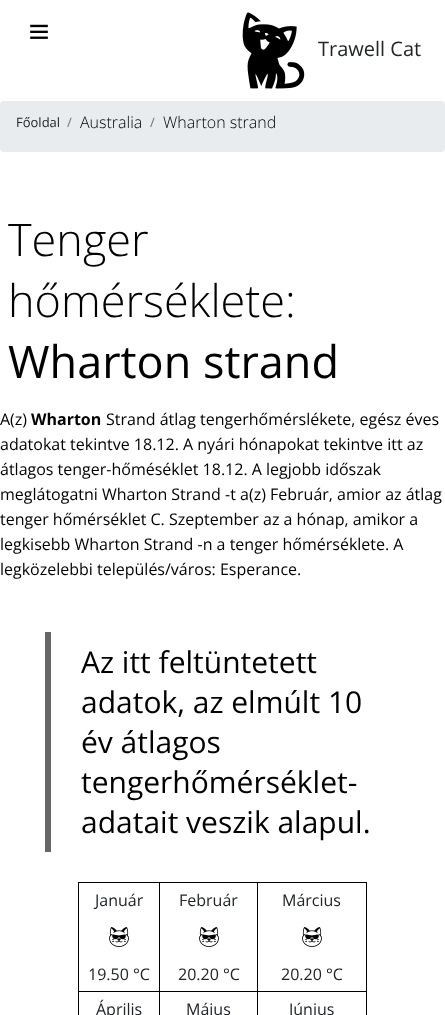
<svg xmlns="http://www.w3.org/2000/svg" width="445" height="1015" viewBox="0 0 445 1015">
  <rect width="100%" height="100%" fill="#ffffff"/>
  <image x="30" y="24" width="18" height="15" href="img1.png"/>
  <image x="242" y="12" width="63" height="77" href="img2.png"/>
  <text x="318" y="56" font-family="Open Sans" font-size="20" fill="#212529">Trawell Cat</text>
  <rect x="0" y="101" width="445" height="51" rx="4" fill="#e9ecef"/>
  <text x="16" y="127" font-family="Open Sans" font-size="13" fill="#212529">Főoldal</text>
  <text x="67" y="127" font-family="Open Sans" font-size="13" fill="#6c757d">/</text>
  <text x="80" y="128" font-family="Open Sans" font-size="16" font-weight="300" fill="#000000">Australia</text>
  <text x="150" y="127" font-family="Open Sans" font-size="13" fill="#6c757d">/</text>
  <text x="163" y="128" font-family="Open Sans" font-size="16" font-weight="300" fill="#000000">Wharton strand</text>
  <text x="8" y="256" font-family="Open Sans" font-size="45" font-weight="300" fill="#000000">Tenger</text>
  <text x="8" y="317" font-family="Open Sans" font-size="45" font-weight="300" fill="#000000">hőmérséklete:</text>
  <text x="8" y="378" font-family="Open Sans" font-size="45" fill="#000000">Wharton strand</text>
  <text x="0" y="425" font-family="Open Sans" font-size="16" fill="#000000">A(z)</text>
  <text x="31" y="425" font-family="Open Sans" font-size="16" font-weight="bold" fill="#000000">Wharton</text>
  <text x="106" y="425" font-family="Open Sans" font-size="16" fill="#000000">Strand átlag tengerhőmérslékete, egész éves</text>
  <text x="0" y="450" font-family="Open Sans" font-size="16" fill="#000000">adatokat tekintve 18.12. A nyári hónapokat tekintve itt az</text>
  <text x="0" y="475" font-family="Open Sans" font-size="16" fill="#000000">átlagos tenger-hőméséklet 18.12. A legjobb időszak</text>
  <text x="0" y="500" font-family="Open Sans" font-size="16" fill="#000000">meglátogatni Wharton Strand -t a(z) Február, amior az átlag</text>
  <text x="0" y="525" font-family="Open Sans" font-size="16" fill="#000000">tenger hőmérséklet C. Szeptember az a hónap, amikor a</text>
  <text x="0" y="550" font-family="Open Sans" font-size="16" fill="#000000">legkisebb Wharton Strand -n a tenger hőmérséklete. A</text>
  <text x="0" y="575" font-family="Open Sans" font-size="16" fill="#000000">legközelebbi település/város: Esperance.</text>
  <rect x="45" y="632" width="6" height="220" fill="#666666"/>
  <text x="81" y="673" font-family="Open Sans" font-size="30" fill="#000000">Az itt feltüntetett</text>
  <text x="81" y="713" font-family="Open Sans" font-size="30" fill="#000000">adatok, az elmúlt 10</text>
  <text x="81" y="753" font-family="Open Sans" font-size="30" fill="#000000">év átlagos</text>
  <text x="81" y="793" font-family="Open Sans" font-size="30" fill="#000000">tengerhőmérséklet-</text>
  <text x="81" y="833" font-family="Open Sans" font-size="30" fill="#000000">adatait veszik alapul.</text>
  <rect x="257" y="882" width="110" height="1" fill="#000000"/>
  <rect x="257" y="991" width="110" height="1" fill="#000000"/>
  <rect x="257" y="991" width="1" height="24" fill="#000000"/>
  <rect x="159" y="991" width="99" height="1" fill="#000000"/>
  <rect x="257" y="882" width="1" height="110" fill="#000000"/>
  <rect x="159" y="882" width="99" height="1" fill="#000000"/>
  <rect x="159" y="991" width="1" height="24" fill="#000000"/>
  <rect x="78" y="991" width="82" height="1" fill="#000000"/>
  <rect x="159" y="882" width="1" height="110" fill="#000000"/>
  <rect x="78" y="882" width="82" height="1" fill="#000000"/>
  <rect x="78" y="991" width="1" height="24" fill="#000000"/>
  <rect x="78" y="882" width="1" height="110" fill="#000000"/>
  <text x="95" y="906" font-family="Open Sans" font-size="16" fill="#212529">Január</text>
  <image x="109" y="927" width="20" height="20" href="img3.png"/>
  <text x="88" y="980" font-family="Open Sans" font-size="16" fill="#212529">19.50 °C</text>
  <text x="179" y="906" font-family="Open Sans" font-size="16" fill="#212529">Február</text>
  <image x="199" y="927" width="20" height="20" href="img3.png"/>
  <text x="178" y="980" font-family="Open Sans" font-size="16" fill="#212529">20.20 °C</text>
  <rect x="366" y="991" width="1" height="24" fill="#000000"/>
  <rect x="366" y="882" width="1" height="110" fill="#000000"/>
  <text x="282" y="906" font-family="Open Sans" font-size="16" fill="#212529">Március</text>
  <image x="302" y="927" width="20" height="20" href="img3.png"/>
  <text x="281" y="980" font-family="Open Sans" font-size="16" fill="#212529">20.20 °C</text>
  <text x="96" y="1015" font-family="Open Sans" font-size="16" fill="#212529">Április</text>
  <text x="186" y="1015" font-family="Open Sans" font-size="16" fill="#212529">Május</text>
  <text x="289" y="1015" font-family="Open Sans" font-size="16" fill="#212529">Június</text>
</svg>
